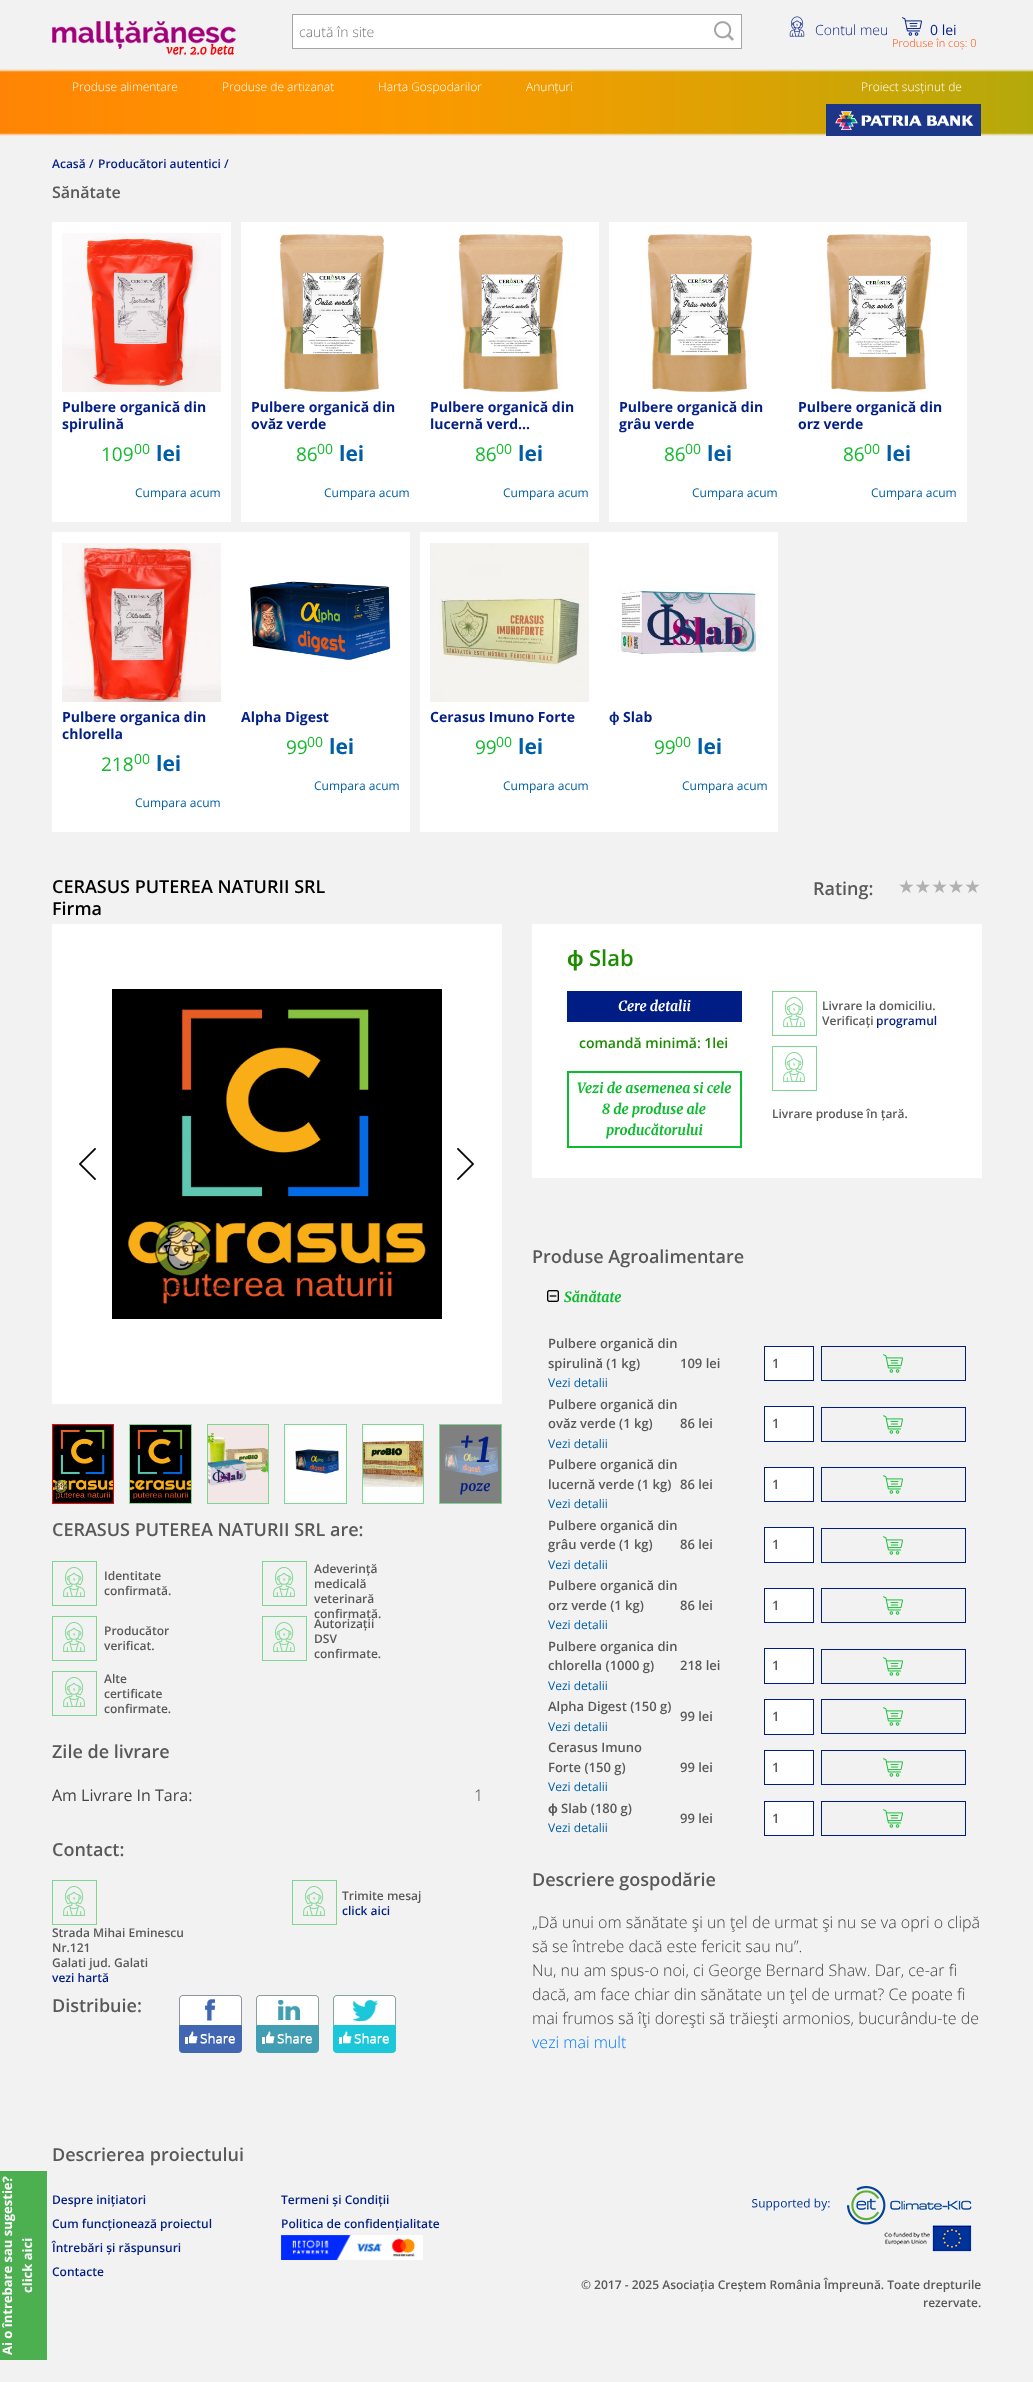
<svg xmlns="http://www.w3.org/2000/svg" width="1033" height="2382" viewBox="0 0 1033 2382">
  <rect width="100%" height="100%" fill="#f2f2f2"/>
  <image x="52" y="21" width="184" height="34" href="img1.png"/>
  <rect x="292.5" y="14.5" width="449" height="34" fill="#ffffff" stroke="#a5a5a5"/>
  <text x="299" y="37" font-family="Open Sans" font-size="14" font-weight="300" fill="#757575">caută în site</text>
  <image x="714" y="21" width="20" height="20" href="img2.png"/>
  <image x="789" y="16" width="16" height="21" href="img3.png"/>
  <text x="815" y="35" font-family="Open Sans" font-size="14" font-weight="300" fill="#031f86">Contul meu</text>
  <image x="902" y="17" width="20" height="19" href="img4.png"/>
  <text x="930" y="35" font-family="Open Sans" font-size="14" fill="#031f86">0 lei</text>
  <text x="892" y="47" font-family="Open Sans" font-size="11" font-weight="300" fill="#ff4700">Produse în coș: 0</text>
  <image x="0" y="69" width="1033" height="67" href="img5.png"/>
  <text x="72" y="91" font-family="Open Sans" font-size="12" font-weight="300" fill="#ffffff">Produse alimentare</text>
  <text x="222" y="91" font-family="Open Sans" font-size="12" font-weight="300" fill="#ffffff">Produse de artizanat</text>
  <text x="378" y="91" font-family="Open Sans" font-size="12" font-weight="300" fill="#ffffff">Harta Gospodarilor</text>
  <text x="526" y="91" font-family="Open Sans" font-size="12" font-weight="300" fill="#ffffff">Anunțuri</text>
  <text x="861" y="91" font-family="Open Sans" font-size="12" font-weight="300" fill="#ffffff">Proiect susținut de</text>
  <image x="826" y="104" width="155" height="32" href="img6.png"/>
  <text x="52" y="168" font-family="Open Sans" font-size="12" font-weight="600" fill="#031f86">Acasă</text>
  <text x="89" y="168" font-family="Open Sans" font-size="12" font-weight="600" fill="#031f86">/</text>
  <text x="98" y="168" font-family="Open Sans" font-size="12" font-weight="600" fill="#031f86">Producători autentici /</text>
  <text x="52" y="198" font-family="Open Sans" font-size="16" font-weight="600" fill="#595959">Sănătate</text>
  <rect x="52" y="222" width="179" height="300" fill="#ffffff"/>
  <image x="62" y="233" width="159" height="159" href="img7.png"/>
  <text x="62" y="412" font-family="Open Sans" font-size="14" font-weight="bold" fill="#031f86">Pulbere organică din</text>
  <text x="62" y="429" font-family="Open Sans" font-size="14" font-weight="bold" fill="#031f86">spirulină</text>
  <text x="101" y="461" font-family="Open Sans" font-size="19" fill="#13ba2d">109</text>
  <text x="134" y="454" font-family="Open Sans" font-size="14" fill="#13ba2d">00</text>
  <text x="156" y="461" font-family="Open Sans" font-size="21" font-weight="bold" fill="#005ea6">lei</text>
  <text x="135" y="497" font-family="Open Sans" font-size="12" fill="#005ea6">Cumpara acum</text>
  <rect x="241" y="222" width="358" height="300" fill="#ffffff"/>
  <image x="279" y="234" width="105" height="158" href="img8.png"/>
  <text x="251" y="412" font-family="Open Sans" font-size="14" font-weight="bold" fill="#031f86">Pulbere organică din</text>
  <text x="251" y="429" font-family="Open Sans" font-size="14" font-weight="bold" fill="#031f86">ovăz verde</text>
  <text x="296" y="461" font-family="Open Sans" font-size="19" fill="#13ba2d">86</text>
  <text x="317" y="454" font-family="Open Sans" font-size="14" fill="#13ba2d">00</text>
  <text x="339" y="461" font-family="Open Sans" font-size="21" font-weight="bold" fill="#005ea6">lei</text>
  <text x="324" y="497" font-family="Open Sans" font-size="12" fill="#005ea6">Cumpara acum</text>
  <image x="458" y="234" width="105" height="158" href="img9.png"/>
  <text x="430" y="412" font-family="Open Sans" font-size="14" font-weight="bold" fill="#031f86">Pulbere organică din</text>
  <text x="430" y="429" font-family="Open Sans" font-size="14" font-weight="bold" fill="#031f86">lucernă verd...</text>
  <text x="475" y="461" font-family="Open Sans" font-size="19" fill="#13ba2d">86</text>
  <text x="496" y="454" font-family="Open Sans" font-size="14" fill="#13ba2d">00</text>
  <text x="518" y="461" font-family="Open Sans" font-size="21" font-weight="bold" fill="#005ea6">lei</text>
  <text x="503" y="497" font-family="Open Sans" font-size="12" fill="#005ea6">Cumpara acum</text>
  <rect x="609" y="222" width="358" height="300" fill="#ffffff"/>
  <image x="647" y="234" width="105" height="158" href="img10.png"/>
  <text x="619" y="412" font-family="Open Sans" font-size="14" font-weight="bold" fill="#031f86">Pulbere organică din</text>
  <text x="619" y="429" font-family="Open Sans" font-size="14" font-weight="bold" fill="#031f86">grâu verde</text>
  <text x="664" y="461" font-family="Open Sans" font-size="19" fill="#13ba2d">86</text>
  <text x="685" y="454" font-family="Open Sans" font-size="14" fill="#13ba2d">00</text>
  <text x="707" y="461" font-family="Open Sans" font-size="21" font-weight="bold" fill="#005ea6">lei</text>
  <text x="692" y="497" font-family="Open Sans" font-size="12" fill="#005ea6">Cumpara acum</text>
  <image x="826" y="234" width="105" height="158" href="img11.png"/>
  <text x="798" y="412" font-family="Open Sans" font-size="14" font-weight="bold" fill="#031f86">Pulbere organică din</text>
  <text x="798" y="429" font-family="Open Sans" font-size="14" font-weight="bold" fill="#031f86">orz verde</text>
  <text x="843" y="461" font-family="Open Sans" font-size="19" fill="#13ba2d">86</text>
  <text x="864" y="454" font-family="Open Sans" font-size="14" fill="#13ba2d">00</text>
  <text x="886" y="461" font-family="Open Sans" font-size="21" font-weight="bold" fill="#005ea6">lei</text>
  <text x="871" y="497" font-family="Open Sans" font-size="12" fill="#005ea6">Cumpara acum</text>
  <rect x="52" y="532" width="358" height="300" fill="#ffffff"/>
  <image x="62" y="543" width="159" height="159" href="img12.png"/>
  <text x="62" y="722" font-family="Open Sans" font-size="14" font-weight="bold" fill="#031f86">Pulbere organica din</text>
  <text x="62" y="739" font-family="Open Sans" font-size="14" font-weight="bold" fill="#031f86">chlorella</text>
  <text x="101" y="771" font-family="Open Sans" font-size="19" fill="#13ba2d">218</text>
  <text x="134" y="764" font-family="Open Sans" font-size="14" fill="#13ba2d">00</text>
  <text x="156" y="771" font-family="Open Sans" font-size="21" font-weight="bold" fill="#005ea6">lei</text>
  <text x="135" y="807" font-family="Open Sans" font-size="12" fill="#005ea6">Cumpara acum</text>
  <image x="250" y="581" width="141" height="79" href="img13.png"/>
  <text x="241" y="722" font-family="Open Sans" font-size="14" font-weight="bold" fill="#031f86">Alpha Digest</text>
  <text x="286" y="754" font-family="Open Sans" font-size="19" fill="#13ba2d">99</text>
  <text x="307" y="747" font-family="Open Sans" font-size="14" fill="#13ba2d">00</text>
  <text x="329" y="754" font-family="Open Sans" font-size="21" font-weight="bold" fill="#005ea6">lei</text>
  <text x="314" y="790" font-family="Open Sans" font-size="12" fill="#005ea6">Cumpara acum</text>
  <rect x="420" y="532" width="358" height="300" fill="#ffffff"/>
  <image x="430" y="543" width="159" height="159" href="img14.png"/>
  <text x="430" y="722" font-family="Open Sans" font-size="14" font-weight="bold" fill="#031f86">Cerasus Imuno Forte</text>
  <text x="475" y="754" font-family="Open Sans" font-size="19" fill="#13ba2d">99</text>
  <text x="496" y="747" font-family="Open Sans" font-size="14" fill="#13ba2d">00</text>
  <text x="518" y="754" font-family="Open Sans" font-size="21" font-weight="bold" fill="#005ea6">lei</text>
  <text x="503" y="790" font-family="Open Sans" font-size="12" fill="#005ea6">Cumpara acum</text>
  <image x="617" y="585" width="145" height="71" href="img15.png"/>
  <text x="609" y="722" font-family="Liberation Sans" font-size="14" font-weight="bold" fill="#031f86">ɸ</text>
  <text x="623" y="722" font-family="Open Sans" font-size="14" font-weight="bold" fill="#031f86">Slab</text>
  <text x="654" y="754" font-family="Open Sans" font-size="19" fill="#13ba2d">99</text>
  <text x="675" y="747" font-family="Open Sans" font-size="14" fill="#13ba2d">00</text>
  <text x="697" y="754" font-family="Open Sans" font-size="21" font-weight="bold" fill="#005ea6">lei</text>
  <text x="682" y="790" font-family="Open Sans" font-size="12" fill="#005ea6">Cumpara acum</text>
  <text x="52" y="893" font-family="Open Sans" font-size="18" font-weight="600" fill="#000000">CERASUS PUTEREA NATURII SRL</text>
  <text x="52" y="915" font-family="Open Sans" font-size="18" font-weight="600" fill="#000000">Firma</text>
  <text x="813" y="895" font-family="Open Sans" font-size="18" font-weight="600" fill="#595959">Rating:</text>
  <text x="898" y="893" font-family="DejaVu Sans" font-size="18.5" fill="#b1b1b1">★★★★★</text>
  <rect x="52" y="924" width="450" height="480" fill="#ffffff"/>
  <image x="112" y="989" width="330" height="330" href="img16.png"/>
  <image x="79" y="1148" width="17" height="32" href="img17.png"/>
  <image x="457" y="1148" width="17" height="32" href="img18.png"/>
  <image x="53" y="1425" width="60" height="78" href="img19.png"/>
  <rect x="52.5" y="1424.5" width="61" height="79" fill="none" stroke="#ff0000"/>
  <image x="130" y="1425" width="61" height="78" href="img20.png"/>
  <rect x="129.5" y="1424.5" width="62" height="79" fill="none" stroke="#7fd690"/>
  <image x="208" y="1425" width="60" height="78" href="img21.png"/>
  <rect x="207.5" y="1424.5" width="61" height="79" fill="none" stroke="#7fd690"/>
  <image x="285" y="1425" width="61" height="78" href="img22.png"/>
  <rect x="284.5" y="1424.5" width="62" height="79" fill="none" stroke="#7fd690"/>
  <image x="363" y="1425" width="60" height="78" href="img23.png"/>
  <rect x="362.5" y="1424.5" width="61" height="79" fill="none" stroke="#7fd690"/>
  <image x="440" y="1425" width="61" height="78" href="img24.png"/>
  <rect x="439.5" y="1424.5" width="62" height="79" fill="none" stroke="#7fd690"/>
  <text x="458" y="1450" font-family="Merriweather" font-size="26" font-weight="bold" font-style="italic" fill="#031f86">+</text>
  <text x="476" y="1462" font-family="Merriweather" font-size="34" font-weight="bold" font-style="italic" fill="#031f86">1</text>
  <text x="460" y="1491" font-family="Merriweather" font-size="14" font-weight="bold" font-style="italic" fill="#031f86">poze</text>
  <text x="52" y="1536" font-family="Open Sans" font-size="18" font-weight="600" fill="#595959">CERASUS PUTEREA NATURII SRL are:</text>
  <rect x="52.5" y="1561.5" width="44" height="44" fill="none" stroke="#7fd690"/>
  <image x="63" y="1567" width="22" height="30" href="img25.png"/>
  <text x="104" y="1580" font-family="Open Sans" font-size="12" font-weight="600" fill="#595959">Identitate</text>
  <text x="104" y="1595" font-family="Open Sans" font-size="12" font-weight="600" fill="#595959">confirmată.</text>
  <rect x="262.5" y="1561.5" width="44" height="44" fill="none" stroke="#7fd690"/>
  <image x="273" y="1567" width="22" height="30" href="img25.png"/>
  <text x="314" y="1573" font-family="Open Sans" font-size="12" font-weight="600" fill="#595959">Adeverință</text>
  <text x="314" y="1588" font-family="Open Sans" font-size="12" font-weight="600" fill="#595959">medicală</text>
  <text x="314" y="1603" font-family="Open Sans" font-size="12" font-weight="600" fill="#595959">veterinară</text>
  <text x="314" y="1618" font-family="Open Sans" font-size="12" font-weight="600" fill="#595959">confirmată.</text>
  <rect x="52.5" y="1616.5" width="44" height="44" fill="none" stroke="#7fd690"/>
  <image x="63" y="1622" width="22" height="30" href="img25.png"/>
  <text x="104" y="1635" font-family="Open Sans" font-size="12" font-weight="600" fill="#595959">Producător</text>
  <text x="104" y="1650" font-family="Open Sans" font-size="12" font-weight="600" fill="#595959">verificat.</text>
  <rect x="262.5" y="1616.5" width="44" height="44" fill="none" stroke="#7fd690"/>
  <image x="273" y="1622" width="22" height="30" href="img25.png"/>
  <text x="314" y="1628" font-family="Open Sans" font-size="12" font-weight="600" fill="#595959">Autorizații</text>
  <text x="314" y="1643" font-family="Open Sans" font-size="12" font-weight="600" fill="#595959">DSV</text>
  <text x="314" y="1658" font-family="Open Sans" font-size="12" font-weight="600" fill="#595959">confirmate.</text>
  <rect x="52.5" y="1671.5" width="44" height="44" fill="none" stroke="#7fd690"/>
  <image x="63" y="1677" width="22" height="30" href="img25.png"/>
  <text x="104" y="1683" font-family="Open Sans" font-size="12" font-weight="600" fill="#595959">Alte</text>
  <text x="104" y="1698" font-family="Open Sans" font-size="12" font-weight="600" fill="#595959">certificate</text>
  <text x="104" y="1713" font-family="Open Sans" font-size="12" font-weight="600" fill="#595959">confirmate.</text>
  <text x="52" y="1758" font-family="Open Sans" font-size="18" font-weight="600" fill="#595959">Zile de livrare</text>
  <text x="52" y="1801" font-family="Open Sans" font-size="16" fill="#444444">Am Livrare In Tara:</text>
  <text x="474" y="1801" font-family="Open Sans" font-size="16" font-weight="300" fill="#444444">1</text>
  <text x="52" y="1856" font-family="Open Sans" font-size="18" font-weight="600" fill="#595959">Contact:</text>
  <rect x="292.5" y="1880.5" width="44" height="44" fill="none" stroke="#7fd690"/>
  <image x="303" y="1886" width="22" height="30" href="img25.png"/>
  <text x="342" y="1900" font-family="Open Sans" font-size="12" font-weight="600" fill="#595959">Trimite mesaj</text>
  <text x="342" y="1915" font-family="Open Sans" font-size="12" font-weight="600" fill="#031f86">click aici</text>
  <rect x="52.5" y="1880.5" width="44" height="44" fill="none" stroke="#7fd690"/>
  <image x="63" y="1886" width="22" height="30" href="img25.png"/>
  <text x="52" y="1937" font-family="Open Sans" font-size="12" font-weight="600" fill="#595959">Strada Mihai Eminescu</text>
  <text x="52" y="1952" font-family="Open Sans" font-size="12" font-weight="600" fill="#595959">Nr.121</text>
  <text x="52" y="1967" font-family="Open Sans" font-size="12" font-weight="600" fill="#595959">Galati jud. Galati</text>
  <text x="52" y="1982" font-family="Open Sans" font-size="12" font-weight="600" fill="#031f86">vezi hartă</text>
  <text x="52" y="2012" font-family="Open Sans" font-size="18" font-weight="600" fill="#595959">Distribuie:</text>
  <image x="179" y="1995" width="63" height="58" href="img26.png"/>
  <image x="256" y="1995" width="63" height="58" href="img27.png"/>
  <image x="333" y="1995" width="63" height="58" href="img28.png"/>
  <rect x="532" y="924" width="450" height="254" fill="#ffffff"/>
  <text x="567" y="966" font-family="Liberation Sans" font-size="22" font-weight="bold" fill="#1e8c00">ɸ</text>
  <text x="589" y="966" font-family="Open Sans" font-size="22" font-weight="600" fill="#1e8c00">Slab</text>
  <rect x="567" y="991" width="175" height="31" fill="#001c85"/>
  <text x="618" y="1011" font-family="Merriweather" font-size="14" font-weight="bold" font-style="italic" fill="#ffffff">Cere detalii</text>
  <text x="579" y="1048" font-family="Open Sans" font-size="14" font-weight="600" fill="#1e8c00">comandă minimă: 1lei</text>
  <rect x="568" y="1072" width="173" height="75" fill="none" stroke="#0dbb2e" stroke-width="2"/>
  <text x="577" y="1093" font-family="Merriweather" font-size="14" font-weight="bold" font-style="italic" fill="#0dbb2e">Vezi de asemenea si cele</text>
  <text x="602" y="1114" font-family="Merriweather" font-size="14" font-weight="bold" font-style="italic" fill="#0dbb2e">8 de produse ale</text>
  <text x="606" y="1135" font-family="Merriweather" font-size="14" font-weight="bold" font-style="italic" fill="#0dbb2e">producătorului</text>
  <rect x="772.5" y="991.5" width="44" height="44" fill="none" stroke="#7fd690"/>
  <image x="783" y="997" width="22" height="30" href="img29.png"/>
  <text x="822" y="1010" font-family="Open Sans" font-size="12" font-weight="600" fill="#595959">Livrare la domiciliu.</text>
  <text x="822" y="1025" font-family="Open Sans" font-size="12" font-weight="600" fill="#595959">Verificați</text>
  <text x="876" y="1025" font-family="Open Sans" font-size="12" font-weight="600" fill="#031f86">programul</text>
  <rect x="772.5" y="1046.5" width="44" height="44" fill="none" stroke="#7fd690"/>
  <image x="783" y="1052" width="22" height="30" href="img29.png"/>
  <text x="772" y="1118" font-family="Open Sans" font-size="12" font-weight="600" fill="#595959">Livrare produse în țară.</text>
  <text x="532" y="1263" font-family="Open Sans" font-size="18" font-weight="600" fill="#595959">Produse Agroalimentare</text>
  <image x="547" y="1290" width="12" height="12" href="img30.png"/>
  <text x="564" y="1302" font-family="Merriweather" font-size="14" font-weight="bold" font-style="italic" fill="#0dbb2e">Sănătate</text>
  <text x="548" y="1348" font-family="Open Sans" font-size="13" font-weight="600" fill="#595959">Pulbere organică din</text>
  <text x="548" y="1368" font-family="Open Sans" font-size="13" font-weight="600" fill="#595959">spirulină (1 kg)</text>
  <text x="548" y="1387" font-family="Open Sans" font-size="12" fill="#005ea6">Vezi detalii</text>
  <text x="680" y="1368" font-family="Open Sans" font-size="13" font-weight="600" fill="#595959">109 lei</text>
  <rect x="764.5" y="1346.5" width="49" height="34" fill="#ffffff" stroke="#001c85"/>
  <text x="772" y="1368" font-family="Open Sans" font-size="13" font-weight="600" fill="#595959">1</text>
  <rect x="821.5" y="1346.5" width="144" height="34" fill="none" stroke="#001c85"/>
  <image x="883" y="1354" width="20" height="19" href="img31.png"/>
  <text x="548" y="1409" font-family="Open Sans" font-size="13" font-weight="600" fill="#595959">Pulbere organică din</text>
  <text x="548" y="1428" font-family="Open Sans" font-size="13" font-weight="600" fill="#595959">ovăz verde (1 kg)</text>
  <text x="548" y="1448" font-family="Open Sans" font-size="12" fill="#005ea6">Vezi detalii</text>
  <text x="680" y="1428" font-family="Open Sans" font-size="13" font-weight="600" fill="#595959">86 lei</text>
  <rect x="764.5" y="1406.5" width="49" height="35" fill="#ffffff" stroke="#001c85"/>
  <text x="772" y="1428" font-family="Open Sans" font-size="13" font-weight="600" fill="#595959">1</text>
  <rect x="821.5" y="1407.5" width="144" height="34" fill="none" stroke="#001c85"/>
  <image x="883" y="1415" width="20" height="19" href="img31.png"/>
  <text x="548" y="1469" font-family="Open Sans" font-size="13" font-weight="600" fill="#595959">Pulbere organică din</text>
  <text x="548" y="1489" font-family="Open Sans" font-size="13" font-weight="600" fill="#595959">lucernă verde (1 kg)</text>
  <text x="548" y="1508" font-family="Open Sans" font-size="12" fill="#005ea6">Vezi detalii</text>
  <text x="680" y="1489" font-family="Open Sans" font-size="13" font-weight="600" fill="#595959">86 lei</text>
  <rect x="764.5" y="1467.5" width="49" height="34" fill="#ffffff" stroke="#001c85"/>
  <text x="772" y="1489" font-family="Open Sans" font-size="13" font-weight="600" fill="#595959">1</text>
  <rect x="821.5" y="1467.5" width="144" height="34" fill="none" stroke="#001c85"/>
  <image x="883" y="1475" width="20" height="19" href="img31.png"/>
  <text x="548" y="1530" font-family="Open Sans" font-size="13" font-weight="600" fill="#595959">Pulbere organică din</text>
  <text x="548" y="1549" font-family="Open Sans" font-size="13" font-weight="600" fill="#595959">grâu verde (1 kg)</text>
  <text x="548" y="1569" font-family="Open Sans" font-size="12" fill="#005ea6">Vezi detalii</text>
  <text x="680" y="1549" font-family="Open Sans" font-size="13" font-weight="600" fill="#595959">86 lei</text>
  <rect x="764.5" y="1527.5" width="49" height="35" fill="#ffffff" stroke="#001c85"/>
  <text x="772" y="1549" font-family="Open Sans" font-size="13" font-weight="600" fill="#595959">1</text>
  <rect x="821.5" y="1528.5" width="144" height="34" fill="none" stroke="#001c85"/>
  <image x="883" y="1536" width="20" height="19" href="img31.png"/>
  <text x="548" y="1590" font-family="Open Sans" font-size="13" font-weight="600" fill="#595959">Pulbere organică din</text>
  <text x="548" y="1610" font-family="Open Sans" font-size="13" font-weight="600" fill="#595959">orz verde (1 kg)</text>
  <text x="548" y="1629" font-family="Open Sans" font-size="12" fill="#005ea6">Vezi detalii</text>
  <text x="680" y="1610" font-family="Open Sans" font-size="13" font-weight="600" fill="#595959">86 lei</text>
  <rect x="764.5" y="1588.5" width="49" height="34" fill="#ffffff" stroke="#001c85"/>
  <text x="772" y="1610" font-family="Open Sans" font-size="13" font-weight="600" fill="#595959">1</text>
  <rect x="821.5" y="1588.5" width="144" height="34" fill="none" stroke="#001c85"/>
  <image x="883" y="1596" width="20" height="19" href="img31.png"/>
  <text x="548" y="1651" font-family="Open Sans" font-size="13" font-weight="600" fill="#595959">Pulbere organica din</text>
  <text x="548" y="1670" font-family="Open Sans" font-size="13" font-weight="600" fill="#595959">chlorella (1000 g)</text>
  <text x="548" y="1690" font-family="Open Sans" font-size="12" fill="#005ea6">Vezi detalii</text>
  <text x="680" y="1670" font-family="Open Sans" font-size="13" font-weight="600" fill="#595959">218 lei</text>
  <rect x="764.5" y="1648.5" width="49" height="35" fill="#ffffff" stroke="#001c85"/>
  <text x="772" y="1670" font-family="Open Sans" font-size="13" font-weight="600" fill="#595959">1</text>
  <rect x="821.5" y="1649.5" width="144" height="34" fill="none" stroke="#001c85"/>
  <image x="883" y="1657" width="20" height="19" href="img31.png"/>
  <text x="548" y="1711" font-family="Open Sans" font-size="13" font-weight="600" fill="#595959">Alpha Digest (150 g)</text>
  <text x="548" y="1731" font-family="Open Sans" font-size="12" fill="#005ea6">Vezi detalii</text>
  <text x="680" y="1721" font-family="Open Sans" font-size="13" font-weight="600" fill="#595959">99 lei</text>
  <rect x="764.5" y="1699.5" width="49" height="35" fill="#ffffff" stroke="#001c85"/>
  <text x="772" y="1721" font-family="Open Sans" font-size="13" font-weight="600" fill="#595959">1</text>
  <rect x="821.5" y="1699.5" width="144" height="34" fill="none" stroke="#001c85"/>
  <image x="883" y="1707" width="20" height="19" href="img31.png"/>
  <text x="548" y="1752" font-family="Open Sans" font-size="13" font-weight="600" fill="#595959">Cerasus Imuno</text>
  <text x="548" y="1772" font-family="Open Sans" font-size="13" font-weight="600" fill="#595959">Forte (150 g)</text>
  <text x="548" y="1791" font-family="Open Sans" font-size="12" fill="#005ea6">Vezi detalii</text>
  <text x="680" y="1772" font-family="Open Sans" font-size="13" font-weight="600" fill="#595959">99 lei</text>
  <rect x="764.5" y="1750.5" width="49" height="34" fill="#ffffff" stroke="#001c85"/>
  <text x="772" y="1772" font-family="Open Sans" font-size="13" font-weight="600" fill="#595959">1</text>
  <rect x="821.5" y="1750.5" width="144" height="34" fill="none" stroke="#001c85"/>
  <image x="883" y="1758" width="20" height="19" href="img31.png"/>
  <text x="548" y="1813" font-family="Liberation Sans" font-size="13" font-weight="bold" fill="#595959">ɸ</text>
  <text x="561" y="1813" font-family="Open Sans" font-size="13" font-weight="600" fill="#595959">Slab (180 g)</text>
  <text x="548" y="1832" font-family="Open Sans" font-size="12" fill="#005ea6">Vezi detalii</text>
  <text x="680" y="1823" font-family="Open Sans" font-size="13" font-weight="600" fill="#595959">99 lei</text>
  <rect x="764.5" y="1801.5" width="49" height="34" fill="#ffffff" stroke="#001c85"/>
  <text x="772" y="1823" font-family="Open Sans" font-size="13" font-weight="600" fill="#595959">1</text>
  <rect x="821.5" y="1801.5" width="144" height="34" fill="none" stroke="#001c85"/>
  <image x="883" y="1809" width="20" height="19" href="img31.png"/>
  <text x="532" y="1886" font-family="Open Sans" font-size="18" font-weight="600" fill="#595959">Descriere gospodărie</text>
  <text x="532" y="1928" font-family="Open Sans" font-size="16" font-weight="300" fill="#444444">„Dă unui om sănătate şi un ţel de urmat şi nu se va opri o clipă</text>
  <text x="532" y="1952" font-family="Open Sans" font-size="16" font-weight="300" fill="#444444">să se întrebe dacă este fericit sau nu”.</text>
  <text x="532" y="1976" font-family="Open Sans" font-size="16" font-weight="300" fill="#444444">Nu, nu am spus-o noi, ci George Bernard Shaw. Dar, ce-ar fi</text>
  <text x="532" y="2000" font-family="Open Sans" font-size="16" font-weight="300" fill="#444444">dacă, am face chiar din sănătate un ţel de urmat? Ce poate fi</text>
  <text x="532" y="2024" font-family="Open Sans" font-size="16" font-weight="300" fill="#444444">mai frumos să îţi doreşti să trăieşti armonios, bucurându-te de</text>
  <text x="532" y="2048" font-family="Open Sans" font-size="16" font-weight="300" fill="#007bff">vezi mai mult</text>
  <rect x="0" y="2171" width="47" height="189" fill="#4caf50"/>
  <text x="12" y="2355" transform="rotate(-90 12 2355)" font-family="Open Sans" font-size="13" font-weight="bold" fill="#ffffff">Ai o întrebare sau sugestie?</text>
  <text x="32" y="2293" transform="rotate(-90 32 2293)" font-family="Open Sans" font-size="13" font-weight="bold" fill="#ffffff">click aici</text>
  <text x="52" y="2161" font-family="Open Sans" font-size="18" font-weight="600" fill="#595959">Descrierea proiectului</text>
  <text x="52" y="2204" font-family="Open Sans" font-size="12" font-weight="600" fill="#031f86">Despre inițiatori</text>
  <text x="52" y="2228" font-family="Open Sans" font-size="12" font-weight="600" fill="#031f86">Cum funcționează proiectul</text>
  <text x="52" y="2252" font-family="Open Sans" font-size="12" font-weight="600" fill="#031f86">Întrebări și răspunsuri</text>
  <text x="52" y="2276" font-family="Open Sans" font-size="12" font-weight="600" fill="#031f86">Contacte</text>
  <text x="281" y="2204" font-family="Open Sans" font-size="12" font-weight="600" fill="#031f86">Termeni și Condiții</text>
  <text x="281" y="2228" font-family="Open Sans" font-size="12" font-weight="600" fill="#031f86">Politica de confidențialitate</text>
  <image x="281" y="2235" width="142" height="25" href="img32.png"/>
  <image x="752" y="2186" width="220" height="66" href="img33.png"/>
  <text x="581" y="2289" font-family="Open Sans" font-size="12" font-weight="600" fill="#595959">© 2017 - 2025 Asociația Creștem România Împreună. Toate drepturile</text>
  <text x="923" y="2307" font-family="Open Sans" font-size="12" font-weight="600" fill="#595959">rezervate.</text>
</svg>
